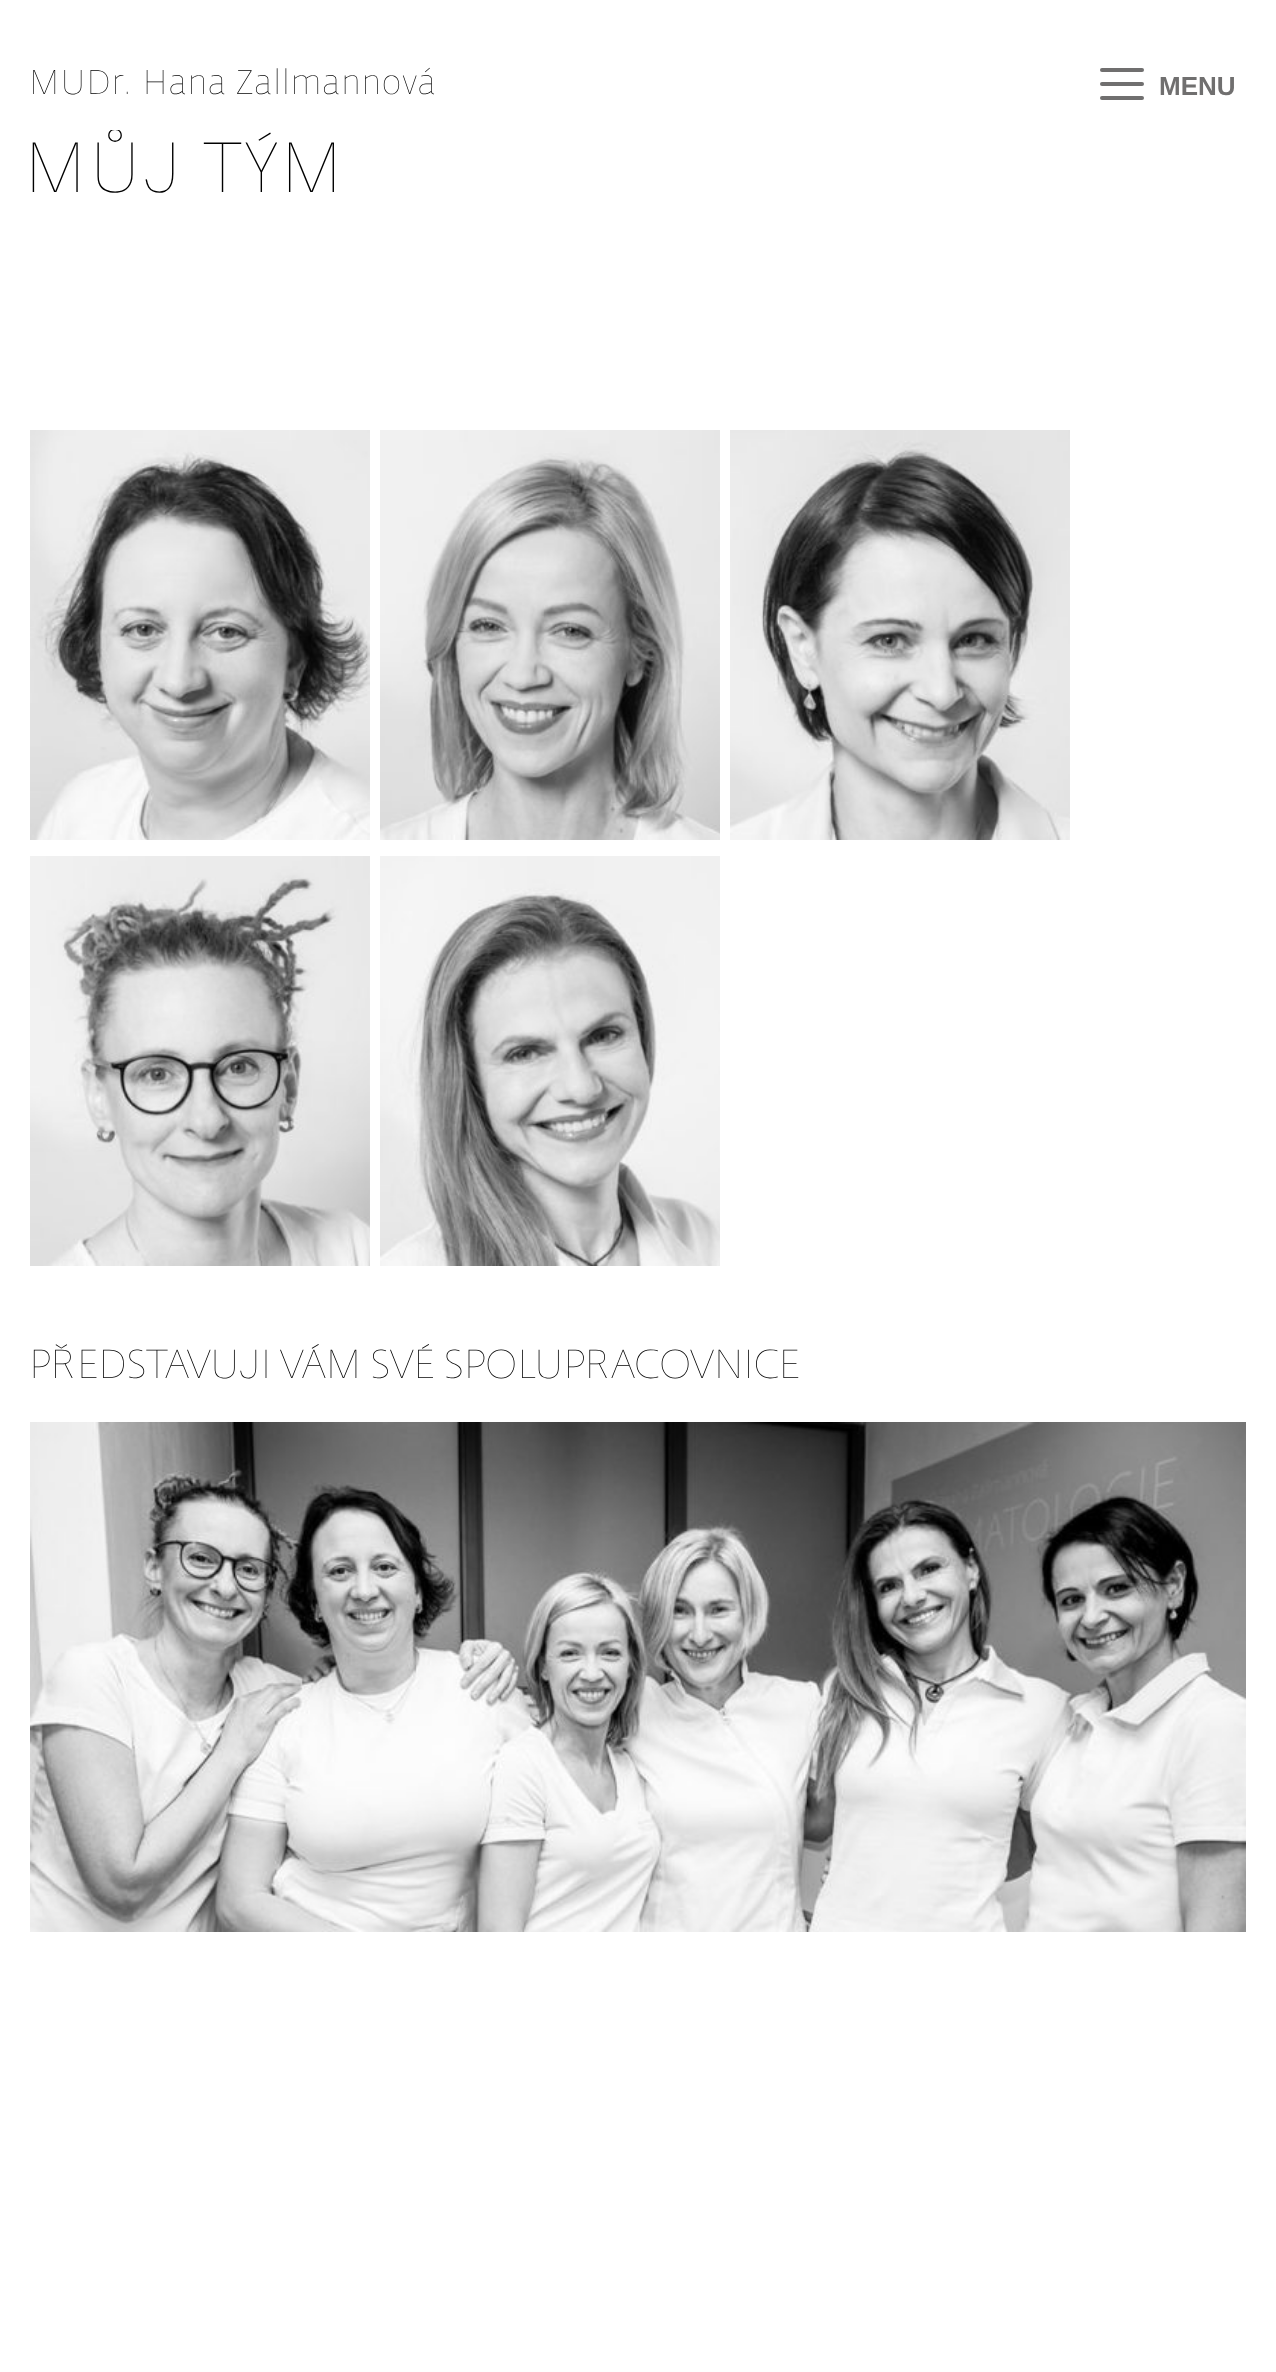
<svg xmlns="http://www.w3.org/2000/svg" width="1276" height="2372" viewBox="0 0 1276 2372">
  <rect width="100%" height="100%" fill="#ffffff"/>
  <text x="26" y="192" font-family="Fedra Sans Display" font-size="70" font-weight="100" letter-spacing="7" fill="#000000">MŮJ TÝM</text>
  <rect x="110" y="128" width="10" height="2" fill="#ffffff"/>
  <text x="30" y="94" font-family="Fedra Sans Display" font-size="34" font-weight="100" letter-spacing="3" fill="#000000">MUDr. Hana Zallmannová</text>
  <rect x="1100" y="68" width="44" height="4" rx="2" fill="#706f6f"/>
  <rect x="1100" y="82" width="44" height="4" rx="2" fill="#706f6f"/>
  <text x="1159" y="95" font-family="Liberation Sans" font-size="26" font-weight="bold" fill="#706f6f">MENU</text>
  <rect x="1100" y="96" width="44" height="4" rx="2" fill="#706f6f"/>
  <image x="30" y="430" width="340" height="410" href="img1.png"/>
  <image x="380" y="430" width="340" height="410" href="img2.png"/>
  <image x="730" y="430" width="340" height="410" href="img3.png"/>
  <image x="30" y="856" width="340" height="410" href="img4.png"/>
  <image x="380" y="856" width="340" height="410" href="img5.png"/>
  <text x="30" y="1378" font-family="Fedra Sans Display" font-size="40" font-weight="100" letter-spacing="2" fill="#000000">PŘEDSTAVUJI VÁM SVÉ SPOLUPRACOVNICE</text>
  <image x="30" y="1422" width="1216" height="510" href="img6.png"/>
</svg>
